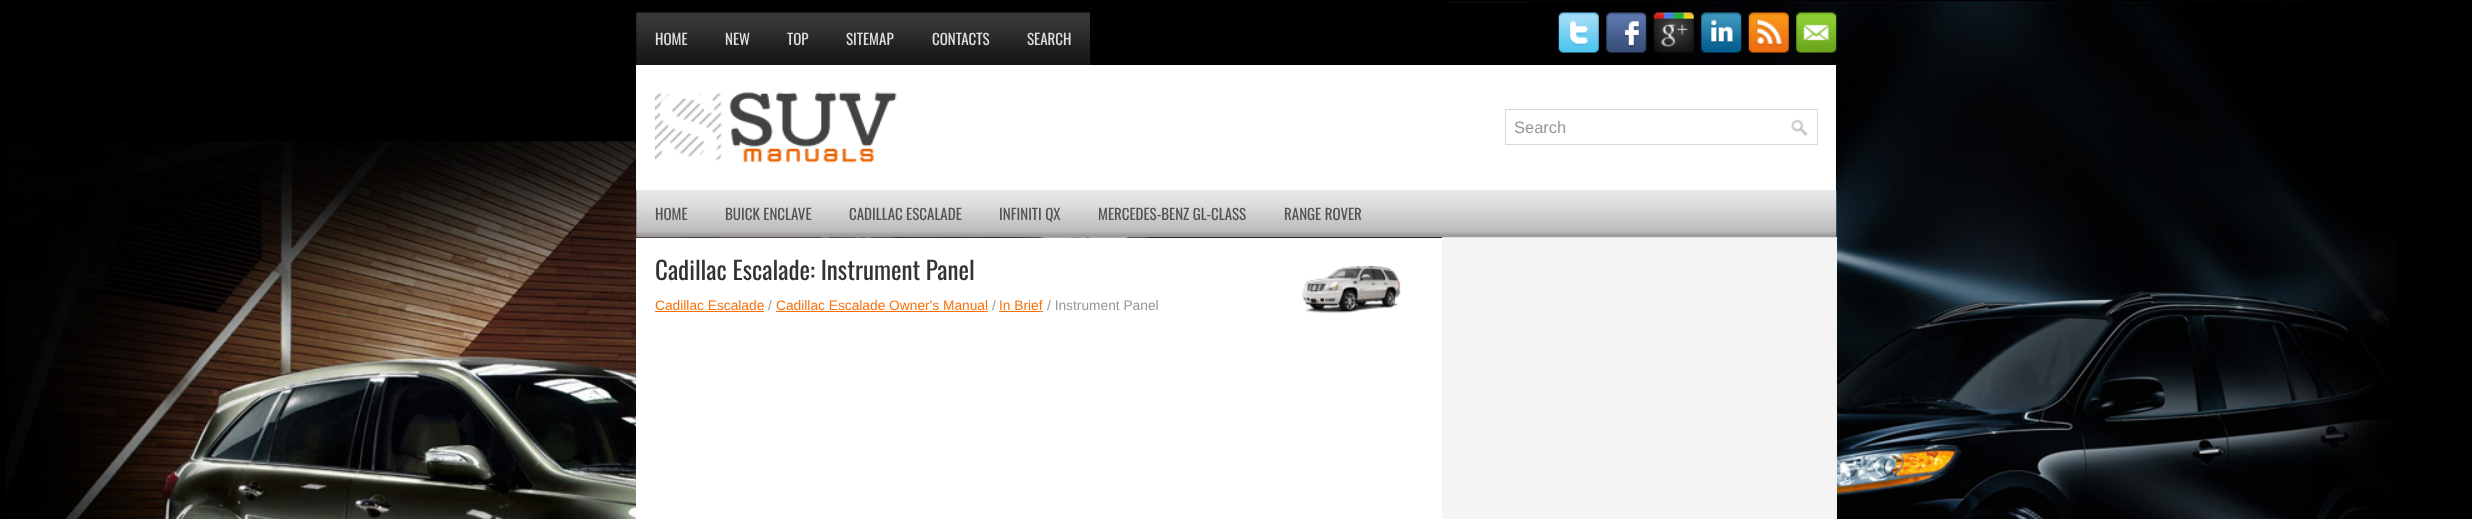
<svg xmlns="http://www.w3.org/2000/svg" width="2472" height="519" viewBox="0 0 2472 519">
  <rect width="100%" height="100%" fill="#000000"/>
  <image x="5" y="0" width="2391" height="519" href="img1.png"/>
  <image x="636" y="12" width="454" height="53" href="img2.png"/>
  <text x="655" y="45" font-family="Oswald" font-size="15" fill="#e0e0e0">HOME</text>
  <text x="725" y="45" font-family="Oswald" font-size="15" fill="#e0e0e0">NEW</text>
  <text x="787" y="45" font-family="Oswald" font-size="15" fill="#e0e0e0">TOP</text>
  <text x="846" y="45" font-family="Oswald" font-size="15" fill="#e0e0e0">SITEMAP</text>
  <text x="932" y="45" font-family="Oswald" font-size="15" fill="#e0e0e0">CONTACTS</text>
  <text x="1027" y="45" font-family="Oswald" font-size="15" fill="#e0e0e0">SEARCH</text>
  <image x="1558" y="12" width="41" height="41" href="img3.png"/>
  <image x="1606" y="12" width="41" height="41" href="img4.png"/>
  <image x="1653" y="12" width="41" height="41" href="img5.png"/>
  <image x="1701" y="12" width="41" height="41" href="img6.png"/>
  <image x="1748" y="12" width="41" height="41" href="img7.png"/>
  <image x="1796" y="12" width="41" height="41" href="img8.png"/>
  <rect x="636" y="65" width="1200" height="125" fill="#ffffff"/>
  <image x="655" y="92" width="242" height="71" href="img9.png"/>
  <rect x="1505.5" y="109.5" width="312" height="35" fill="none" stroke="#d8d8d8"/>
  <text x="1514" y="133" font-family="Liberation Sans" font-size="16.5" fill="#979797">Search</text>
  <image x="1791" y="119" width="17" height="18" href="img10.png"/>
  <rect x="1442" y="237" width="395" height="282" fill="#f4f4f4"/>
  <image x="636" y="190" width="1201" height="48" href="img11.png"/>
  <text x="655" y="220" font-family="Oswald" font-size="15" fill="#525252">HOME</text>
  <text x="725" y="220" font-family="Oswald" font-size="15" fill="#525252">BUICK ENCLAVE</text>
  <text x="849" y="220" font-family="Oswald" font-size="15" fill="#525252">CADILLAC ESCALADE</text>
  <text x="999" y="220" font-family="Oswald" font-size="15" fill="#525252">INFINITI QX</text>
  <text x="1098" y="220" font-family="Oswald" font-size="15" fill="#525252">MERCEDES-BENZ GL-CLASS</text>
  <text x="1284" y="220" font-family="Oswald" font-size="15" fill="#525252">RANGE ROVER</text>
  <rect x="636" y="238" width="806" height="281" fill="#ffffff"/>
  <text x="655" y="280" font-family="Oswald" font-size="25" fill="#333333">Cadillac Escalade: Instrument Panel</text>
  <image x="1301" y="265" width="100" height="48" href="img12.png"/>
  <text x="655" y="310" font-family="Liberation Sans" font-size="13.75" fill="#f8710e">Cadillac Escalade</text>
  <rect x="655" y="311" width="109" height="1" fill="#f8710e"/>
  <text x="768" y="310" font-family="Liberation Sans" font-size="13.75" fill="#979797">/</text>
  <text x="776" y="310" font-family="Liberation Sans" font-size="13.75" fill="#f8710e">Cadillac Escalade Owner's Manual</text>
  <rect x="776" y="311" width="212" height="1" fill="#f8710e"/>
  <text x="992" y="310" font-family="Liberation Sans" font-size="13.75" fill="#979797">/</text>
  <text x="999" y="310" font-family="Liberation Sans" font-size="13.75" fill="#f8710e">In Brief</text>
  <rect x="999" y="311" width="44" height="1" fill="#f8710e"/>
  <text x="1047" y="310" font-family="Liberation Sans" font-size="13.75" fill="#979797">/ Instrument Panel</text>
</svg>
